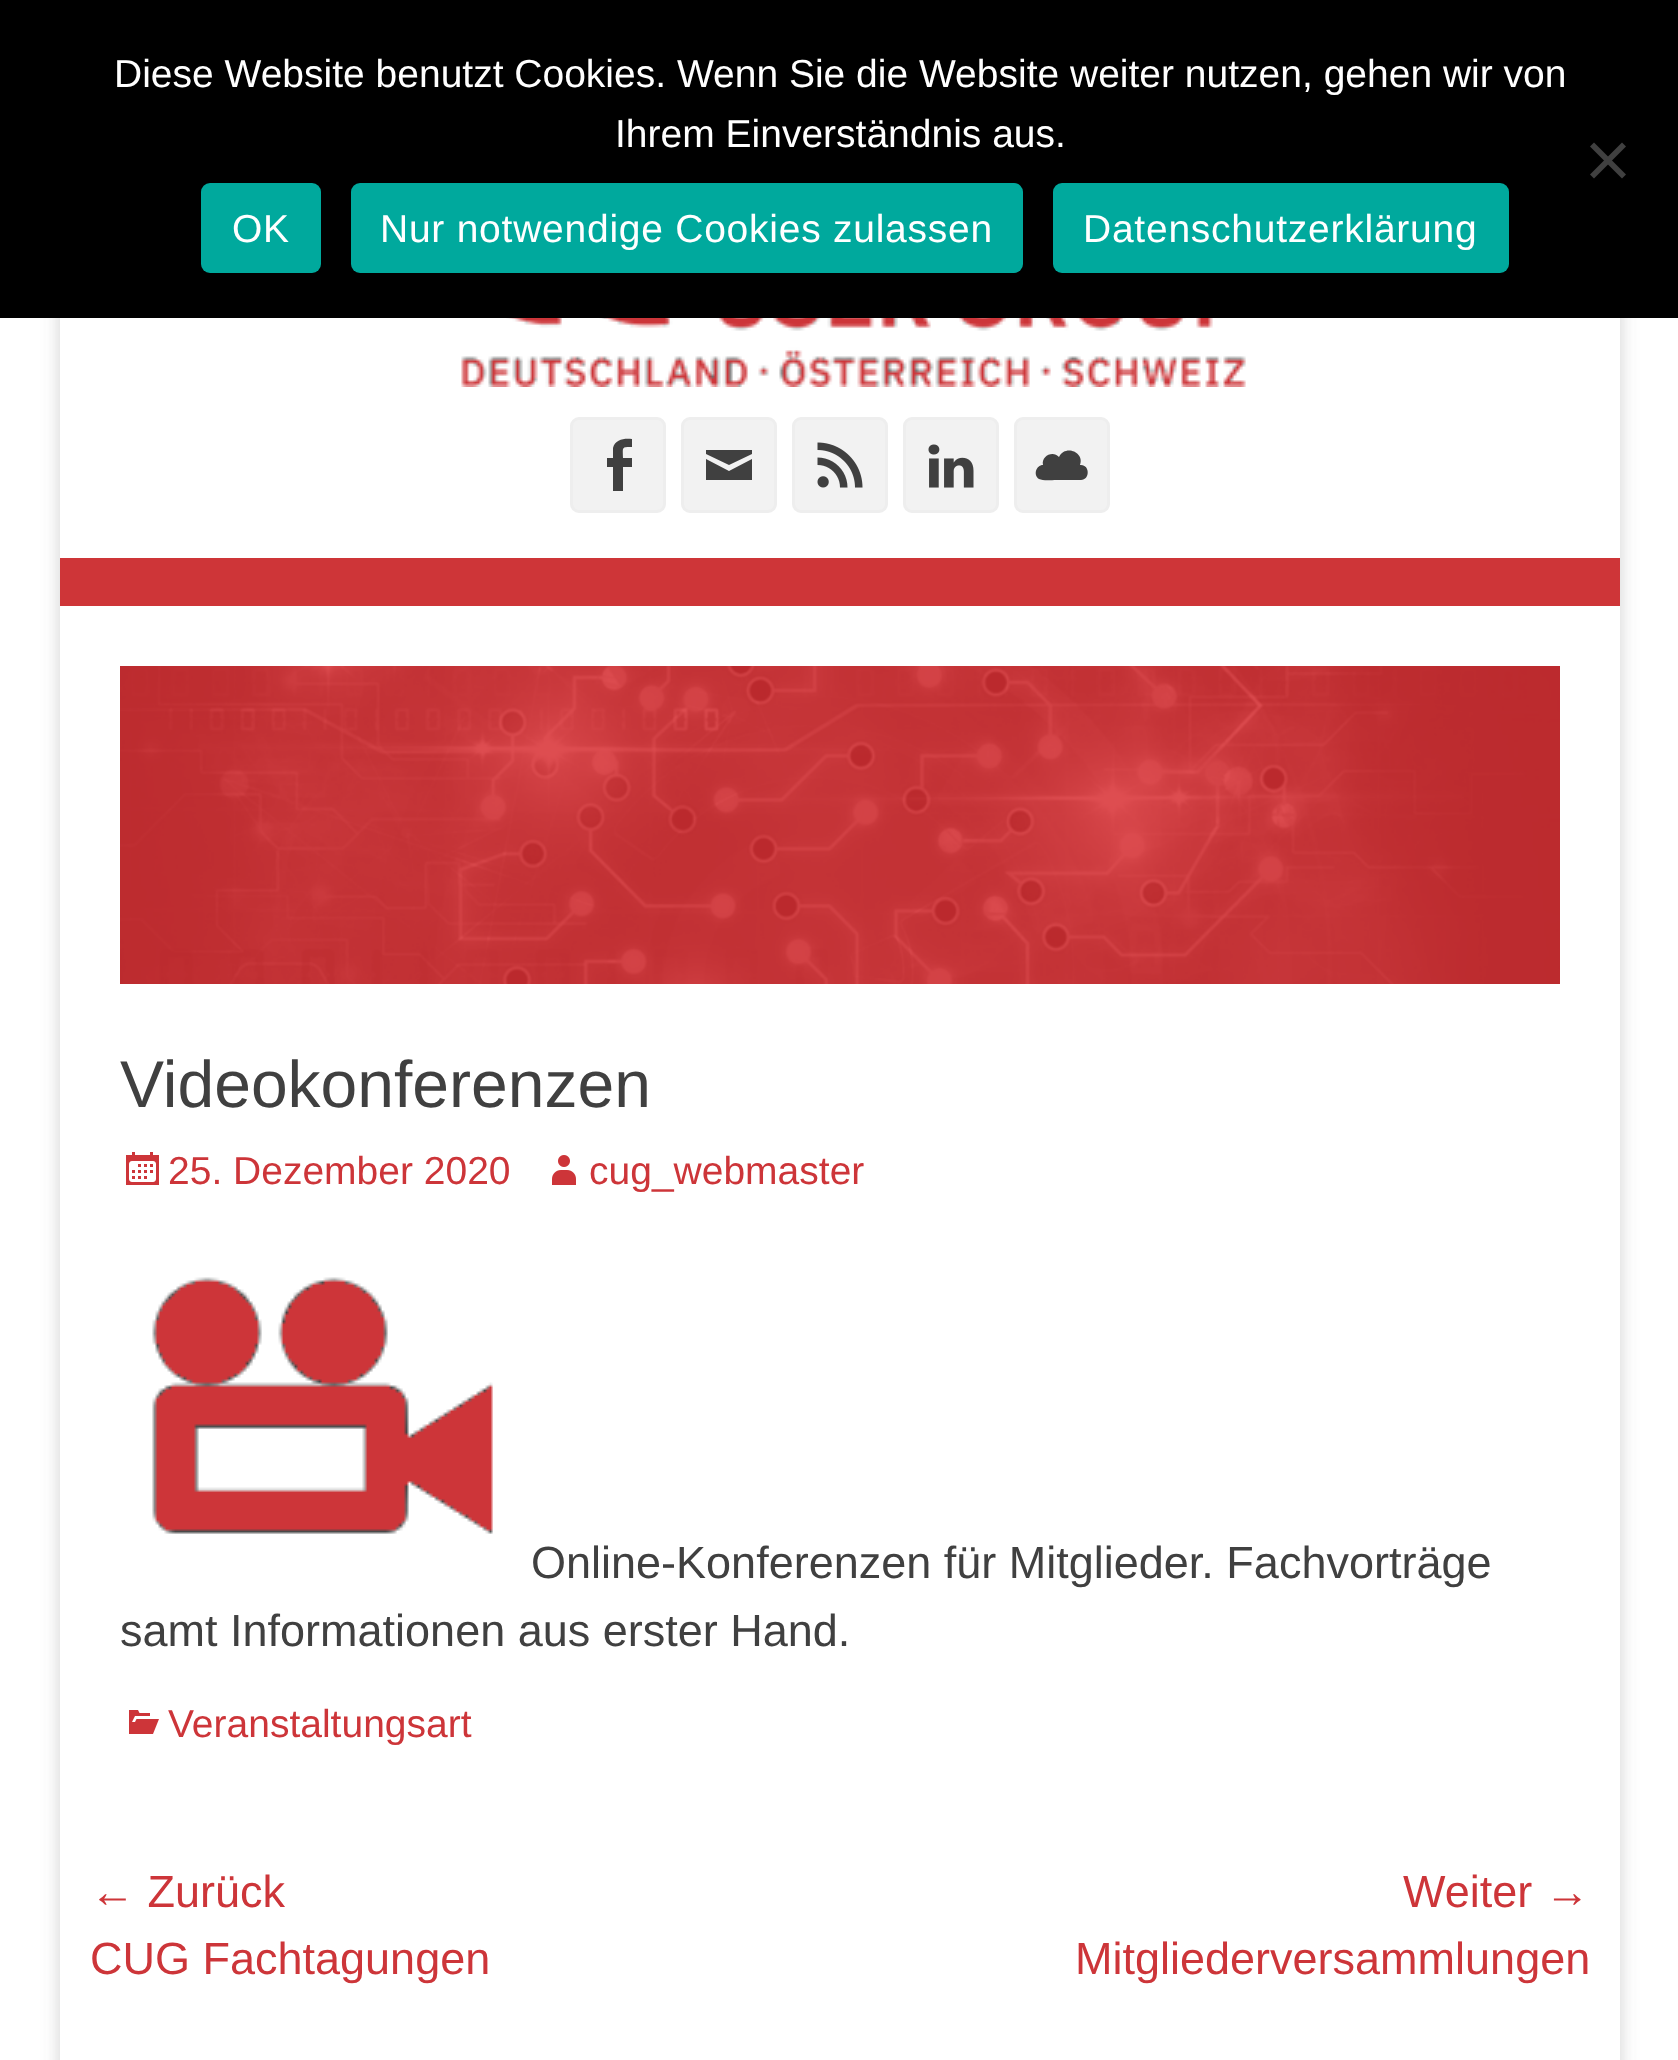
<svg xmlns="http://www.w3.org/2000/svg" width="1678" height="2060" viewBox="0 0 1678 2060">
  <defs>
    <filter id="blur1" x="-50%" y="-200%" width="200%" height="500%"><feGaussianBlur stdDeviation="9"/></filter>
  </defs>
  <rect width="100%" height="100%" fill="#ffffff"/>
  <rect x="60" y="66" width="1560" height="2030" rx="9" fill="#646464" fill-opacity="0.3" filter="url(#blur1)"/>
  <rect x="0" y="0" width="1678" height="318" fill="#000000"/>
  <text x="114" y="87" font-family="Liberation Sans" font-size="39" fill="#ffffff">Diese Website benutzt Cookies. Wenn Sie die Website weiter nutzen, gehen wir von</text>
  <text x="615" y="147" font-family="Liberation Sans" font-size="39" fill="#ffffff">Ihrem Einverständnis aus.</text>
  <path d="M1622 142.5L1626 146.5L1594 178.5L1590 174.5Z" fill="#404040"/>
  <path d="M1590 146.5L1594 142.5L1626 174.5L1622 178.5Z" fill="#404040"/>
  <rect x="201" y="183" width="120" height="90" rx="9" fill="#00a99d"/>
  <text x="232" y="242" font-family="Liberation Sans" font-size="39" letter-spacing="0.75" fill="#ffffff">OK</text>
  <rect x="351" y="183" width="672" height="90" rx="9" fill="#00a99d"/>
  <text x="380" y="242" font-family="Liberation Sans" font-size="39" letter-spacing="0.75" fill="#ffffff">Nur notwendige Cookies zulassen</text>
  <rect x="1053" y="183" width="456" height="90" rx="9" fill="#00a99d"/>
  <text x="1083" y="242" font-family="Liberation Sans" font-size="39" letter-spacing="0.75" fill="#ffffff">Datenschutzerklärung</text>
  <rect x="60" y="318" width="1560" height="1742" fill="#ffffff"/>
  <image x="437" y="318" width="809" height="69" href="img1.png"/>
  <rect x="571.5" y="418.5" width="93" height="93" rx="7.5" fill="#f2f2f2" stroke="#eeeeee" stroke-width="3"/>
  <path d="M623 458H632V467H623V491H613V467H607V458H613V448C615 439 625 438 632 439V447C621 447 623 447 623 458Z" fill="#404040"/>
  <rect x="682.5" y="418.5" width="93" height="93" rx="7.5" fill="#f2f2f2" stroke="#eeeeee" stroke-width="3"/>
  <path d="M706 450H752V454L729 465L706 454ZM706 459L729 471L752 459V480H706Z" fill="#404040"/>
  <rect x="793.5" y="418.5" width="93" height="93" rx="7.5" fill="#f2f2f2" stroke="#eeeeee" stroke-width="3"/>
  <image x="817" y="442" width="46" height="46" href="img2.png"/>
  <rect x="904.5" y="418.5" width="93" height="93" rx="7.5" fill="#f2f2f2" stroke="#eeeeee" stroke-width="3"/>
  <image x="928" y="444" width="46" height="44" href="img3.png"/>
  <rect x="1015.5" y="418.5" width="93" height="93" rx="7.5" fill="#f2f2f2" stroke="#eeeeee" stroke-width="3"/>
  <path d="M1081 465C1090 465 1090 480 1081 480H1056C1052 480 1043 481 1039 479C1033 475 1036 465 1043 465C1041 456 1053 450 1059 457C1065 444 1085 452 1080 465Z" fill="#404040"/>
  <rect x="60" y="558" width="1560" height="48" fill="#ce3538"/>
  <image x="120" y="666" width="1440" height="318" href="img4.png"/>
  <text x="120" y="1107" font-family="Liberation Sans" font-size="66" fill="#404040">Videokonferenzen</text>
  <image x="126" y="1152" width="33" height="33" href="img5.png"/>
  <text x="168" y="1184" font-family="Liberation Sans" font-size="39" fill="#cd3539">25. Dezember 2020</text>
  <image x="552" y="1155" width="24" height="30" href="img6.png"/>
  <text x="589" y="1184" font-family="Liberation Sans" font-size="39" fill="#cd3539">cug_webmaster</text>
  <image x="152" y="1277" width="341" height="257" href="img7.png"/>
  <text x="531" y="1578" font-family="Liberation Sans" font-size="45" fill="#404040">Online-Konferenzen für Mitglieder. Fachvorträge</text>
  <text x="120" y="1646" font-family="Liberation Sans" font-size="45" fill="#404040">samt Informationen aus erster Hand.</text>
  <image x="129" y="1710" width="30" height="24" href="img8.png"/>
  <text x="168" y="1737" font-family="Liberation Sans" font-size="39" fill="#cd3539">Veranstaltungsart</text>
  <text x="90" y="1907" font-family="Liberation Sans" font-size="45" fill="#cd3539">← Zurück</text>
  <text x="90" y="1974" font-family="Liberation Sans" font-size="45" fill="#cd3539">CUG Fachtagungen</text>
  <text x="1403" y="1907" font-family="Liberation Sans" font-size="45" fill="#cd3539">Weiter →</text>
  <text x="1075" y="1974" font-family="Liberation Sans" font-size="45" fill="#cd3539">Mitgliederversammlungen</text>
</svg>
